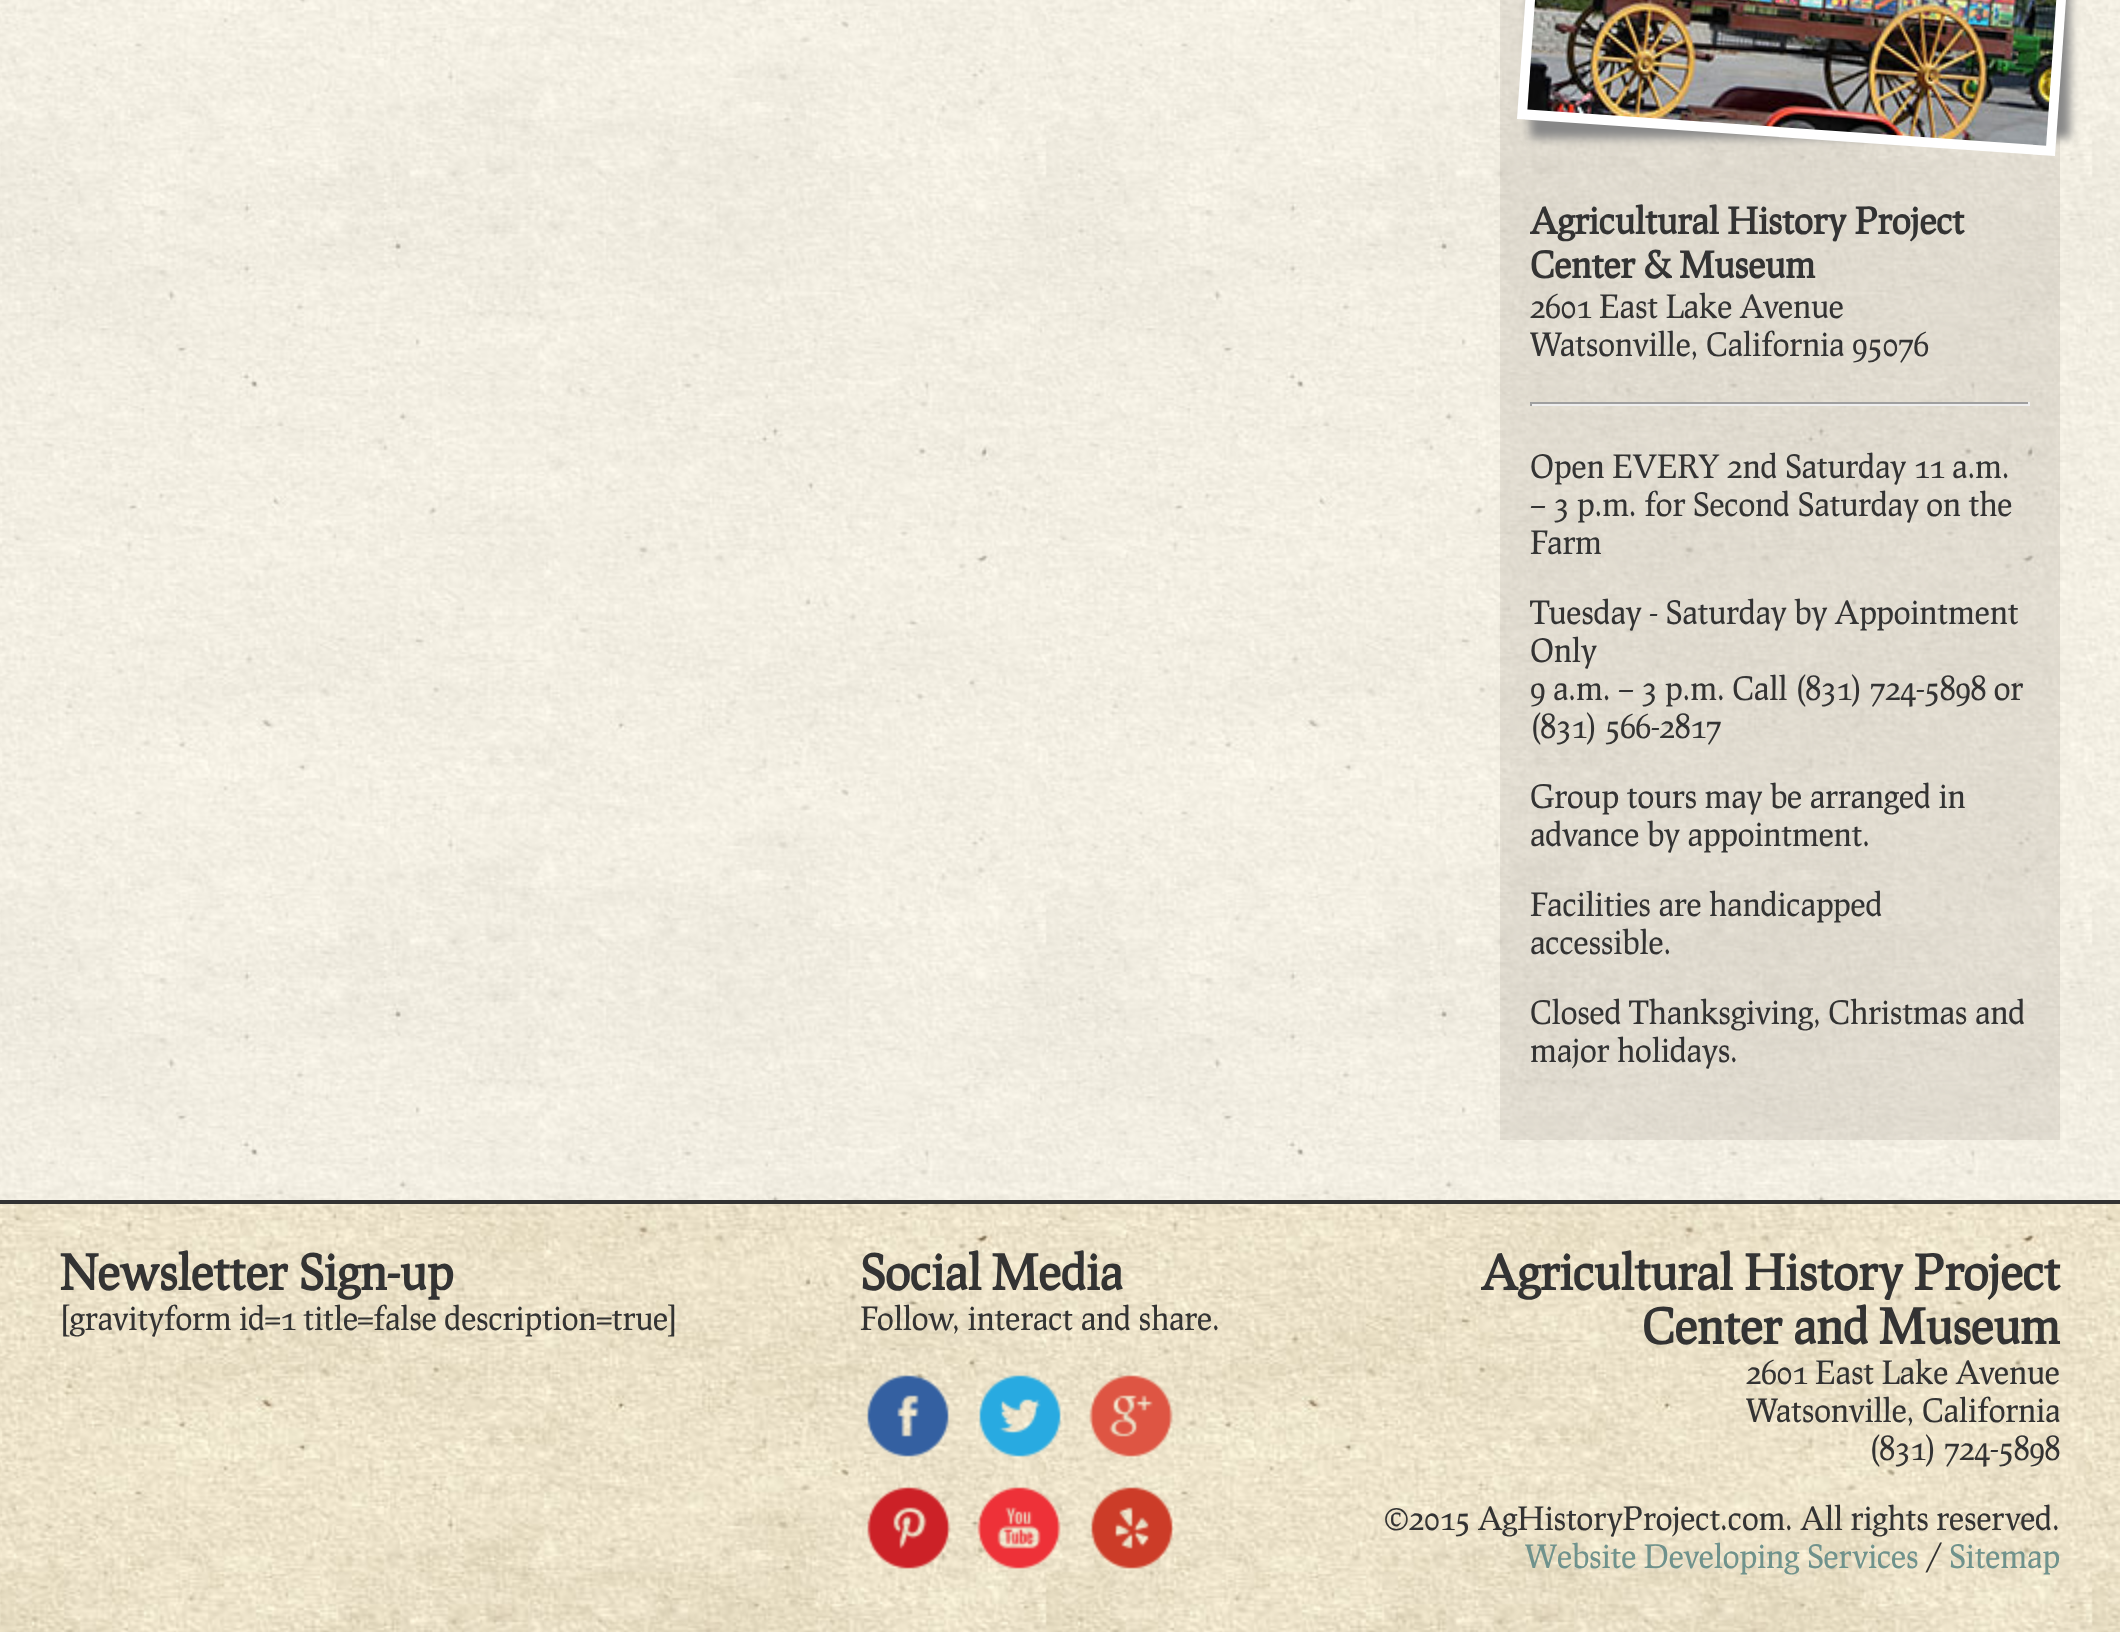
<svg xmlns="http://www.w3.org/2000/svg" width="2120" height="1632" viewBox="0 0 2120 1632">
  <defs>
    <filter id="blur1" x="-50%" y="-200%" width="200%" height="500%"><feGaussianBlur stdDeviation="5"/></filter>
  </defs>
  <rect width="100%" height="100%" fill="#ffffff"/>
  <image x="0" y="0" width="2120" height="1200" href="img1.png"/>
  <rect x="1500" y="0" width="560" height="1140" fill="#9d9189" fill-opacity="0.2"/>
  <rect x="1530" y="-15" width="540" height="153" fill="#888888" filter="url(#blur1)"/>
  <path d="M1545-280L2083-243L2055 156L1517 119Z" fill="#ffffff"/>
  <image x="1527" y="0" width="530" height="146" href="img2.png"/>
  <text x="1530" y="234" font-family="Prociono" font-size="36" font-weight="bold" fill="#333333">Agricultural History Project</text>
  <text x="1530" y="278" font-family="Prociono" font-size="36" font-weight="bold" fill="#333333">Center &amp; Museum</text>
  <text x="1530" y="318" font-family="Prociono" font-size="32" fill="#333333">2601 East Lake Avenue</text>
  <text x="1530" y="356" font-family="Prociono" font-size="32" fill="#333333">Watsonville, California 95076</text>
  <rect x="1530" y="402" width="500" height="2" fill="#9f9f9f"/>
  <rect x="2028" y="402" width="2" height="4" fill="#eeeeee"/>
  <rect x="1530" y="404" width="500" height="2" fill="#eeeeee"/>
  <rect x="1530" y="402" width="2" height="4" fill="#9f9f9f"/>
  <text x="1530" y="478" font-family="Prociono" font-size="32" fill="#333333">Open EVERY 2nd Saturday 11 a.m.</text>
  <text x="1530" y="516" font-family="Prociono" font-size="32" fill="#333333">– 3 p.m. for Second Saturday on the</text>
  <text x="1530" y="554" font-family="Prociono" font-size="32" fill="#333333">Farm</text>
  <text x="1530" y="624" font-family="Prociono" font-size="32" fill="#333333">Tuesday - Saturday by Appointment</text>
  <text x="1530" y="662" font-family="Prociono" font-size="32" fill="#333333">Only</text>
  <text x="1530" y="700" font-family="Prociono" font-size="32" fill="#333333">9 a.m. – 3 p.m. Call (831) 724-5898 or</text>
  <text x="1530" y="738" font-family="Prociono" font-size="32" fill="#333333">(831) 566-2817</text>
  <text x="1530" y="808" font-family="Prociono" font-size="32" fill="#333333">Group tours may be arranged in</text>
  <text x="1530" y="846" font-family="Prociono" font-size="32" fill="#333333">advance by appointment.</text>
  <text x="1530" y="916" font-family="Prociono" font-size="32" fill="#333333">Facilities are handicapped</text>
  <text x="1530" y="954" font-family="Prociono" font-size="32" fill="#333333">accessible.</text>
  <text x="1530" y="1024" font-family="Prociono" font-size="32" fill="#333333">Closed Thanksgiving, Christmas and</text>
  <text x="1530" y="1062" font-family="Prociono" font-size="32" fill="#333333">major holidays.</text>
  <image x="0" y="1204" width="2120" height="428" href="img3.png"/>
  <rect x="0" y="1200" width="2120" height="4" fill="#333333"/>
  <text x="60" y="1290" font-family="Prociono" font-size="48" font-weight="bold" fill="#333333">Newsletter Sign-up</text>
  <text x="60" y="1330" font-family="Prociono" font-size="32" fill="#333333">[gravityform id=1 title=false description=true]</text>
  <text x="860" y="1290" font-family="Prociono" font-size="48" font-weight="bold" fill="#333333">Social Media</text>
  <text x="860" y="1330" font-family="Prociono" font-size="32" fill="#333333">Follow, interact and share.</text>
  <image x="867" y="1375" width="82" height="82" href="img4.png"/>
  <image x="979" y="1375" width="82" height="82" href="img5.png"/>
  <image x="1089" y="1375" width="84" height="82" href="img6.png"/>
  <image x="867" y="1487" width="84" height="82" href="img7.png"/>
  <image x="977" y="1487" width="84" height="82" href="img8.png"/>
  <image x="1091" y="1487" width="82" height="82" href="img9.png"/>
  <text x="1481" y="1290" font-family="Prociono" font-size="48" font-weight="bold" fill="#333333">Agricultural History Project</text>
  <text x="1642" y="1344" font-family="Prociono" font-size="48" font-weight="bold" fill="#333333">Center and Museum</text>
  <text x="1746" y="1384" font-family="Prociono" font-size="32" fill="#333333">2601 East Lake Avenue</text>
  <text x="1746" y="1422" font-family="Prociono" font-size="32" fill="#333333">Watsonville, California</text>
  <text x="1869" y="1460" font-family="Prociono" font-size="32" fill="#333333">(831) 724-5898</text>
  <text x="1384" y="1530" font-family="Prociono" font-size="32" fill="#333333">©2015 AgHistoryProject.com. All rights reserved.</text>
  <text x="1525" y="1568" font-family="Prociono" font-size="32" fill="#6f928c">Website Developing Services</text>
  <text x="1926" y="1568" font-family="Prociono" font-size="32" fill="#333333">/</text>
  <text x="1949" y="1568" font-family="Prociono" font-size="32" fill="#6f928c">Sitemap</text>
</svg>
